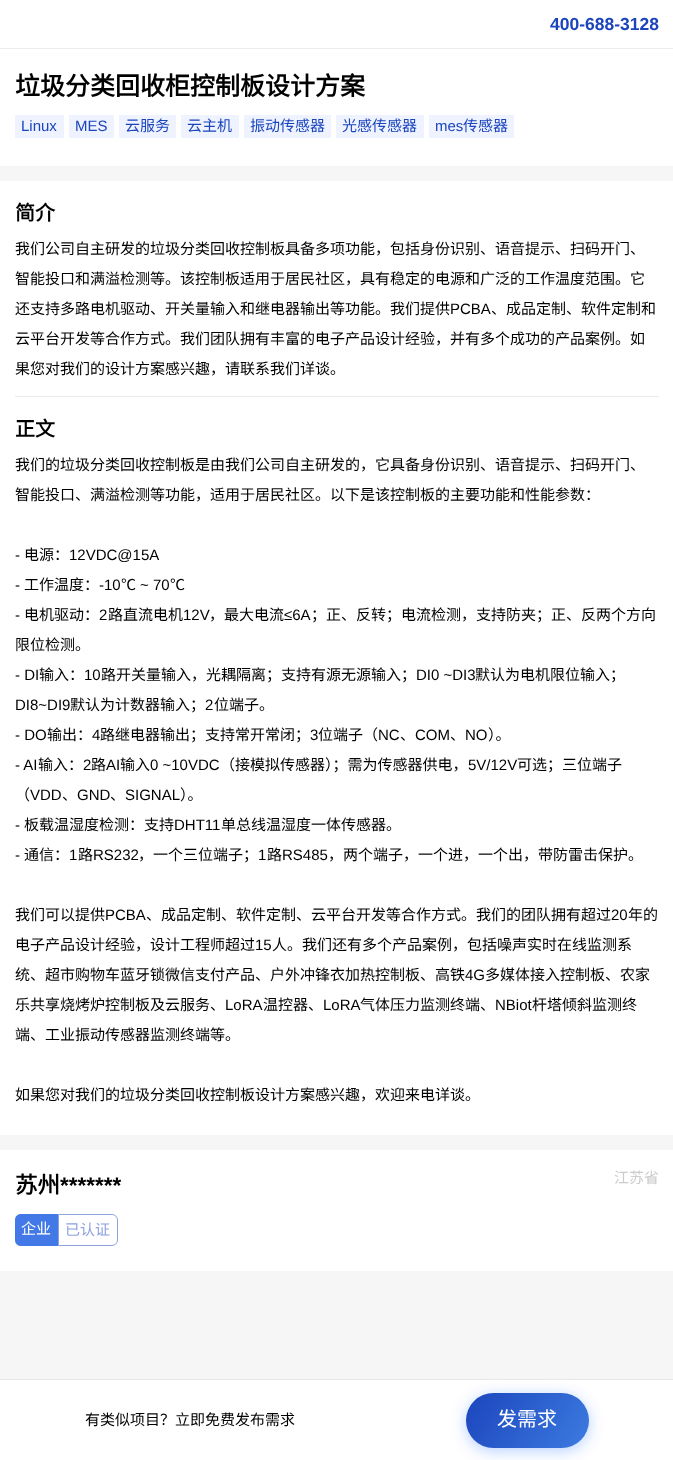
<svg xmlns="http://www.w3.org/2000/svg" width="673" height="1460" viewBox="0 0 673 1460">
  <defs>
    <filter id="blur1" x="-50%" y="-200%" width="200%" height="500%"><feGaussianBlur stdDeviation="7.5"/></filter>
    <linearGradient id="g1" gradientUnits="userSpaceOnUse" x1="584" y1="1455" x2="471" y2="1385"><stop offset="0" stop-color="#3c7be0"/><stop offset="1" stop-color="#1c45bd"/></linearGradient>
  </defs>
  <rect width="100%" height="100%" fill="#f6f6f6"/>
  <rect x="0" y="0" width="673" height="48" fill="#ffffff"/>
  <rect x="0" y="48" width="673" height="1" fill="#ececec"/>
  <text x="550" y="30" font-family="Liberation Sans" font-size="17.5" font-weight="bold" fill="#1c45bd">400-688-3128</text>
  <rect x="0" y="49" width="673" height="117" fill="#ffffff"/>
  <text x="15" y="95" font-family="Noto Sans CJK SC" font-size="25" font-weight="bold" fill="#000000">垃圾分类回收柜控制板设计方案</text>
  <rect x="15" y="115" width="49" height="23" fill="#eef3ff"/>
  <text x="21" y="131" font-family="Liberation Sans" font-size="15" fill="#1c45bd">Linux</text>
  <rect x="69" y="115" width="45" height="23" fill="#eef3ff"/>
  <text x="75" y="131" font-family="Liberation Sans" font-size="15" fill="#1c45bd">MES</text>
  <rect x="119" y="115" width="57" height="23" fill="#eef3ff"/>
  <text x="125" y="131" font-family="Noto Sans CJK SC" font-size="15" fill="#1c45bd">云服务</text>
  <rect x="181" y="115" width="58" height="23" fill="#eef3ff"/>
  <text x="187" y="131" font-family="Noto Sans CJK SC" font-size="15" fill="#1c45bd">云主机</text>
  <rect x="244" y="115" width="87" height="23" fill="#eef3ff"/>
  <text x="250" y="131" font-family="Noto Sans CJK SC" font-size="15" fill="#1c45bd">振动传感器</text>
  <rect x="336" y="115" width="88" height="23" fill="#eef3ff"/>
  <text x="342" y="131" font-family="Noto Sans CJK SC" font-size="15" fill="#1c45bd">光感传感器</text>
  <rect x="429" y="115" width="85" height="23" fill="#eef3ff"/>
  <text x="435" y="131" font-family="Liberation Sans" font-size="15" fill="#1c45bd">mes</text>
  <text x="463" y="131" font-family="Noto Sans CJK SC" font-size="15" fill="#1c45bd">传感器</text>
  <rect x="0" y="181" width="673" height="954" fill="#ffffff"/>
  <text x="15" y="220" font-family="Noto Sans CJK SC" font-size="20" font-weight="bold" fill="#000000">简介</text>
  <text x="15" y="254" font-family="Noto Sans CJK SC" font-size="15" fill="#000000">我们公司自主研发的垃圾分类回收控制板具备多项功能，包括身份识别、语音提示、扫码开门、</text>
  <text x="15" y="284" font-family="Noto Sans CJK SC" font-size="15" fill="#000000">智能投口和满溢检测等。该控制板适用于居民社区，具有稳定的电源和广泛的工作温度范围。它</text>
  <text x="15" y="314" font-family="Noto Sans CJK SC" font-size="15" fill="#000000">还支持多路电机驱动、开关量输入和继电器输出等功能。我们提供</text>
  <text x="450" y="314" font-family="Liberation Sans" font-size="15" fill="#000000">PCBA</text>
  <text x="491" y="314" font-family="Noto Sans CJK SC" font-size="15" fill="#000000">、成品定制、软件定制和</text>
  <text x="15" y="344" font-family="Noto Sans CJK SC" font-size="15" fill="#000000">云平台开发等合作方式。我们团队拥有丰富的电子产品设计经验，并有多个成功的产品案例。如</text>
  <text x="15" y="374" font-family="Noto Sans CJK SC" font-size="15" fill="#000000">果您对我们的设计方案感兴趣，请联系我们详谈。</text>
  <rect x="15" y="396" width="644" height="1" fill="#eaeaea"/>
  <text x="15" y="436" font-family="Noto Sans CJK SC" font-size="20" font-weight="bold" fill="#000000">正文</text>
  <text x="15" y="470" font-family="Noto Sans CJK SC" font-size="15" fill="#000000">我们的垃圾分类回收控制板是由我们公司自主研发的，它具备身份识别、语音提示、扫码开门、</text>
  <text x="15" y="500" font-family="Noto Sans CJK SC" font-size="15" fill="#000000">智能投口、满溢检测等功能，适用于居民社区。以下是该控制板的主要功能和性能参数：</text>
  <text x="15" y="560" font-family="Liberation Sans" font-size="15" fill="#000000">-</text>
  <text x="24" y="560" font-family="Noto Sans CJK SC" font-size="15" fill="#000000">电源：</text>
  <text x="69" y="560" font-family="Liberation Sans" font-size="15" fill="#000000">12VDC@15A</text>
  <text x="15" y="590" font-family="Liberation Sans" font-size="15" fill="#000000">-</text>
  <text x="24" y="590" font-family="Noto Sans CJK SC" font-size="15" fill="#000000">工作温度：</text>
  <text x="99" y="590" font-family="Liberation Sans" font-size="15" fill="#000000">-10</text>
  <text x="121" y="590" font-family="Noto Sans CJK SC" font-size="15" fill="#000000">℃</text>
  <text x="140" y="590" font-family="Liberation Sans" font-size="15" fill="#000000">~ 70</text>
  <text x="170" y="590" font-family="Noto Sans CJK SC" font-size="15" fill="#000000">℃</text>
  <text x="15" y="620" font-family="Liberation Sans" font-size="15" fill="#000000">-</text>
  <text x="24" y="620" font-family="Noto Sans CJK SC" font-size="15" fill="#000000">电机驱动：</text>
  <text x="99" y="620" font-family="Liberation Sans" font-size="15" fill="#000000">2</text>
  <text x="108" y="620" font-family="Noto Sans CJK SC" font-size="15" fill="#000000">路直流电机</text>
  <text x="183" y="620" font-family="Liberation Sans" font-size="15" fill="#000000">12V</text>
  <text x="209" y="620" font-family="Noto Sans CJK SC" font-size="15" fill="#000000">，最大电流</text>
  <text x="284" y="620" font-family="Liberation Sans" font-size="15" fill="#000000">≤6A</text>
  <text x="311" y="620" font-family="Noto Sans CJK SC" font-size="15" fill="#000000">；正、反转；电流检测，支持防夹；正、反两个方向</text>
  <text x="15" y="650" font-family="Noto Sans CJK SC" font-size="15" fill="#000000">限位检测。</text>
  <text x="15" y="680" font-family="Liberation Sans" font-size="15" fill="#000000">- DI</text>
  <text x="39" y="680" font-family="Noto Sans CJK SC" font-size="15" fill="#000000">输入：</text>
  <text x="84" y="680" font-family="Liberation Sans" font-size="15" fill="#000000">10</text>
  <text x="101" y="680" font-family="Noto Sans CJK SC" font-size="15" fill="#000000">路开关量输入，光耦隔离；支持有源无源输入；</text>
  <text x="416" y="680" font-family="Liberation Sans" font-size="15" fill="#000000">DI0 ~DI3</text>
  <text x="475" y="680" font-family="Noto Sans CJK SC" font-size="15" fill="#000000">默认为电机限位输入；</text>
  <text x="15" y="710" font-family="Liberation Sans" font-size="15" fill="#000000">DI8~DI9</text>
  <text x="70" y="710" font-family="Noto Sans CJK SC" font-size="15" fill="#000000">默认为计数器输入；</text>
  <text x="205" y="710" font-family="Liberation Sans" font-size="15" fill="#000000">2</text>
  <text x="214" y="710" font-family="Noto Sans CJK SC" font-size="15" fill="#000000">位端子。</text>
  <text x="15" y="740" font-family="Liberation Sans" font-size="15" fill="#000000">- DO</text>
  <text x="47" y="740" font-family="Noto Sans CJK SC" font-size="15" fill="#000000">输出：</text>
  <text x="92" y="740" font-family="Liberation Sans" font-size="15" fill="#000000">4</text>
  <text x="100" y="740" font-family="Noto Sans CJK SC" font-size="15" fill="#000000">路继电器输出；支持常开常闭；</text>
  <text x="310" y="740" font-family="Liberation Sans" font-size="15" fill="#000000">3</text>
  <text x="318" y="740" font-family="Noto Sans CJK SC" font-size="15" fill="#000000">位端子（</text>
  <text x="378" y="740" font-family="Liberation Sans" font-size="15" fill="#000000">NC</text>
  <text x="400" y="740" font-family="Noto Sans CJK SC" font-size="15" fill="#000000">、</text>
  <text x="415" y="740" font-family="Liberation Sans" font-size="15" fill="#000000">COM</text>
  <text x="450" y="740" font-family="Noto Sans CJK SC" font-size="15" fill="#000000">、</text>
  <text x="465" y="740" font-family="Liberation Sans" font-size="15" fill="#000000">NO</text>
  <text x="488" y="740" font-family="Noto Sans CJK SC" font-size="15" fill="#000000">）。</text>
  <text x="15" y="770" font-family="Liberation Sans" font-size="15" fill="#000000">- AI</text>
  <text x="38" y="770" font-family="Noto Sans CJK SC" font-size="15" fill="#000000">输入：</text>
  <text x="83" y="770" font-family="Liberation Sans" font-size="15" fill="#000000">2</text>
  <text x="91" y="770" font-family="Noto Sans CJK SC" font-size="15" fill="#000000">路</text>
  <text x="106" y="770" font-family="Liberation Sans" font-size="15" fill="#000000">AI</text>
  <text x="120" y="770" font-family="Noto Sans CJK SC" font-size="15" fill="#000000">输入</text>
  <text x="150" y="770" font-family="Liberation Sans" font-size="15" fill="#000000">0 ~10VDC</text>
  <text x="220" y="770" font-family="Noto Sans CJK SC" font-size="15" fill="#000000">（接模拟传感器）；需为传感器供电，</text>
  <text x="468" y="770" font-family="Liberation Sans" font-size="15" fill="#000000">5V/12V</text>
  <text x="517" y="770" font-family="Noto Sans CJK SC" font-size="15" fill="#000000">可选；三位端子</text>
  <text x="15" y="800" font-family="Noto Sans CJK SC" font-size="15" fill="#000000">（</text>
  <text x="30" y="800" font-family="Liberation Sans" font-size="15" fill="#000000">VDD</text>
  <text x="62" y="800" font-family="Noto Sans CJK SC" font-size="15" fill="#000000">、</text>
  <text x="77" y="800" font-family="Liberation Sans" font-size="15" fill="#000000">GND</text>
  <text x="110" y="800" font-family="Noto Sans CJK SC" font-size="15" fill="#000000">、</text>
  <text x="125" y="800" font-family="Liberation Sans" font-size="15" fill="#000000">SIGNAL</text>
  <text x="180" y="800" font-family="Noto Sans CJK SC" font-size="15" fill="#000000">）。</text>
  <text x="15" y="830" font-family="Liberation Sans" font-size="15" fill="#000000">-</text>
  <text x="24" y="830" font-family="Noto Sans CJK SC" font-size="15" fill="#000000">板载温湿度检测：支持</text>
  <text x="174" y="830" font-family="Liberation Sans" font-size="15" fill="#000000">DHT11</text>
  <text x="221" y="830" font-family="Noto Sans CJK SC" font-size="15" fill="#000000">单总线温湿度一体传感器。</text>
  <text x="15" y="860" font-family="Liberation Sans" font-size="15" fill="#000000">-</text>
  <text x="24" y="860" font-family="Noto Sans CJK SC" font-size="15" fill="#000000">通信：</text>
  <text x="69" y="860" font-family="Liberation Sans" font-size="15" fill="#000000">1</text>
  <text x="78" y="860" font-family="Noto Sans CJK SC" font-size="15" fill="#000000">路</text>
  <text x="93" y="860" font-family="Liberation Sans" font-size="15" fill="#000000">RS232</text>
  <text x="138" y="860" font-family="Noto Sans CJK SC" font-size="15" fill="#000000">，一个三位端子；</text>
  <text x="258" y="860" font-family="Liberation Sans" font-size="15" fill="#000000">1</text>
  <text x="267" y="860" font-family="Noto Sans CJK SC" font-size="15" fill="#000000">路</text>
  <text x="282" y="860" font-family="Liberation Sans" font-size="15" fill="#000000">RS485</text>
  <text x="328" y="860" font-family="Noto Sans CJK SC" font-size="15" fill="#000000">，两个端子，一个进，一个出，带防雷击保护。</text>
  <text x="15" y="920" font-family="Noto Sans CJK SC" font-size="15" fill="#000000">我们可以提供</text>
  <text x="105" y="920" font-family="Liberation Sans" font-size="15" fill="#000000">PCBA</text>
  <text x="146" y="920" font-family="Noto Sans CJK SC" font-size="15" fill="#000000">、成品定制、软件定制、云平台开发等合作方式。我们的团队拥有超过</text>
  <text x="611" y="920" font-family="Liberation Sans" font-size="15" fill="#000000">20</text>
  <text x="628" y="920" font-family="Noto Sans CJK SC" font-size="15" fill="#000000">年的</text>
  <text x="15" y="950" font-family="Noto Sans CJK SC" font-size="15" fill="#000000">电子产品设计经验，设计工程师超过</text>
  <text x="255" y="950" font-family="Liberation Sans" font-size="15" fill="#000000">15</text>
  <text x="272" y="950" font-family="Noto Sans CJK SC" font-size="15" fill="#000000">人。我们还有多个产品案例，包括噪声实时在线监测系</text>
  <text x="15" y="980" font-family="Noto Sans CJK SC" font-size="15" fill="#000000">统、超市购物车蓝牙锁微信支付产品、户外冲锋衣加热控制板、高铁</text>
  <text x="465" y="980" font-family="Liberation Sans" font-size="15" fill="#000000">4G</text>
  <text x="485" y="980" font-family="Noto Sans CJK SC" font-size="15" fill="#000000">多媒体接入控制板、农家</text>
  <text x="15" y="1010" font-family="Noto Sans CJK SC" font-size="15" fill="#000000">乐共享烧烤炉控制板及云服务、</text>
  <text x="225" y="1010" font-family="Liberation Sans" font-size="15" fill="#000000">LoRA</text>
  <text x="263" y="1010" font-family="Noto Sans CJK SC" font-size="15" fill="#000000">温控器、</text>
  <text x="323" y="1010" font-family="Liberation Sans" font-size="15" fill="#000000">LoRA</text>
  <text x="360" y="1010" font-family="Noto Sans CJK SC" font-size="15" fill="#000000">气体压力监测终端、</text>
  <text x="495" y="1010" font-family="Liberation Sans" font-size="15" fill="#000000">NBiot</text>
  <text x="532" y="1010" font-family="Noto Sans CJK SC" font-size="15" fill="#000000">杆塔倾斜监测终</text>
  <text x="15" y="1040" font-family="Noto Sans CJK SC" font-size="15" fill="#000000">端、工业振动传感器监测终端等。</text>
  <text x="15" y="1100" font-family="Noto Sans CJK SC" font-size="15" fill="#000000">如果您对我们的垃圾分类回收控制板设计方案感兴趣，欢迎来电详谈。</text>
  <rect x="0" y="1150" width="673" height="121" fill="#ffffff"/>
  <text x="15" y="1193" font-family="Noto Sans CJK SC" font-size="22.5" font-weight="bold" fill="#000000">苏州</text>
  <text x="60" y="1193" font-family="Liberation Sans" font-size="22.5" font-weight="bold" fill="#000000">*******</text>
  <text x="614" y="1183" font-family="Noto Sans CJK SC" font-size="15" fill="#cccccc">江苏省</text>
  <path d="M21 1214H58V1246H21C17.5 1246 15 1243.5 15 1240V1220C15 1216.5 17.5 1214 21 1214Z" fill="#4279e6"/>
  <text x="21" y="1234" font-family="Noto Sans CJK SC" font-size="15" fill="#ffffff">企业</text>
  <path d="M58.5 1214.5H112C115 1214.5 117.5 1217 117.5 1220V1240C117.5 1243 115 1245.5 112 1245.5H58.5Z" fill="none" stroke="#8ea2de"/>
  <text x="65" y="1235" font-family="Noto Sans CJK SC" font-size="15" fill="#8ea2de">已认证</text>
  <rect x="0" y="1380" width="673" height="80" fill="#ffffff"/>
  <rect x="0" y="1379" width="673" height="1" fill="#e7e7e7"/>
  <text x="85" y="1425" font-family="Noto Sans CJK SC" font-size="15" fill="#000000">有类似项目？立即免费发布需求</text>
  <rect x="466" y="1396" width="123" height="55" rx="27.5" fill="#005dff" fill-opacity="0.29" filter="url(#blur1)"/>
  <rect x="466" y="1393" width="123" height="55" rx="27.5" fill="url(#g1)"/>
  <text x="497" y="1426" font-family="Noto Sans CJK SC" font-size="20" fill="#ffffff">发需求</text>
</svg>
